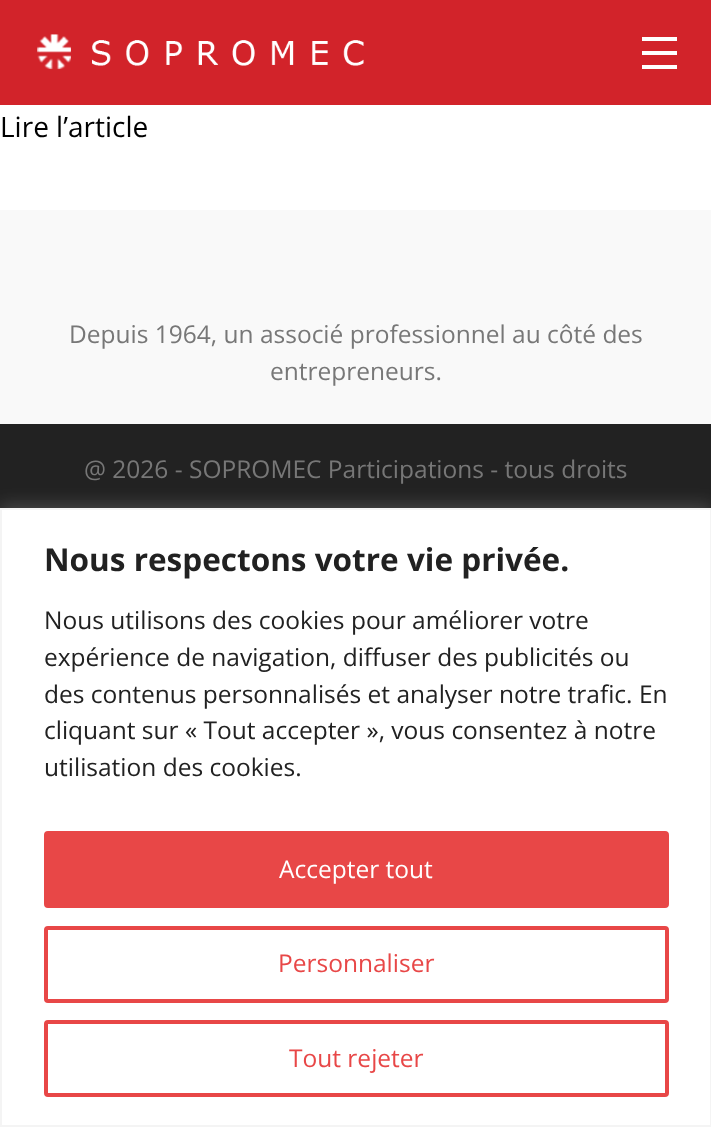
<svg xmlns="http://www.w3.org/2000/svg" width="711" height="1127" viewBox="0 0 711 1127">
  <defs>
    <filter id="blur1" x="-50%" y="-200%" width="200%" height="500%"><feGaussianBlur stdDeviation="9"/></filter>
  </defs>
  <rect width="100%" height="100%" fill="#ffffff"/>
  <rect x="0" y="0" width="711" height="105" fill="#d2232a"/>
  <image x="37" y="34" width="327" height="36" href="img1.png"/>
  <rect x="642" y="37" width="35" height="4" fill="#ffffff"/>
  <rect x="642" y="51" width="35" height="4" fill="#ffffff"/>
  <rect x="642" y="65" width="35" height="4" fill="#ffffff"/>
  <text x="0" y="137" font-family="Open Sans" font-size="28" fill="#000000">Lire l’article</text>
  <rect x="0" y="210" width="711" height="214" fill="#f9f9f9"/>
  <text x="69" y="343" font-family="Open Sans" font-size="24.5" fill="#777777">Depuis 1964, un associé professionnel au côté des</text>
  <text x="270" y="380" font-family="Open Sans" font-size="24.5" fill="#777777">entrepreneurs.</text>
  <rect x="0" y="424" width="711" height="84" fill="#222222"/>
  <text x="84" y="478" font-family="Open Sans" font-size="24.5" fill="#777777">@ 2026 - SOPROMEC Participations - tous droits</text>
  <rect x="0" y="506" width="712" height="619" fill="#acabab" fill-opacity="0.3" filter="url(#blur1)"/>
  <rect x="1" y="509" width="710" height="617" fill="#ffffff" stroke="#f4f4f4" stroke-width="2"/>
  <text x="44" y="571" font-family="Open Sans" font-size="31.5" font-weight="bold" fill="#212121">Nous respectons votre vie privée.</text>
  <text x="44" y="629" font-family="Open Sans" font-size="24.5" fill="#212121">Nous utilisons des cookies pour améliorer votre</text>
  <text x="44" y="666" font-family="Open Sans" font-size="24.5" fill="#212121">expérience de navigation, diffuser des publicités ou</text>
  <text x="44" y="703" font-family="Open Sans" font-size="24.5" fill="#212121">des contenus personnalisés et analyser notre trafic. En</text>
  <text x="44" y="739" font-family="Open Sans" font-size="24.5" fill="#212121">cliquant sur « Tout accepter », vous consentez à notre</text>
  <text x="44" y="776" font-family="Open Sans" font-size="24.5" fill="#212121">utilisation des cookies.</text>
  <rect x="46" y="833" width="621" height="73" rx="2" fill="#e84747" stroke="#e84747" stroke-width="4"/>
  <text x="279" y="878" font-family="Open Sans" font-size="24.5" fill="#ffffff">Accepter tout</text>
  <rect x="46" y="928" width="621" height="73" rx="2" fill="none" stroke="#e84747" stroke-width="4"/>
  <text x="278" y="972" font-family="Open Sans" font-size="24.5" fill="#e84747">Personnaliser</text>
  <rect x="46" y="1022" width="621" height="73" rx="2" fill="none" stroke="#e84747" stroke-width="4"/>
  <text x="289" y="1067" font-family="Open Sans" font-size="24.5" fill="#e84747">Tout rejeter</text>
</svg>
